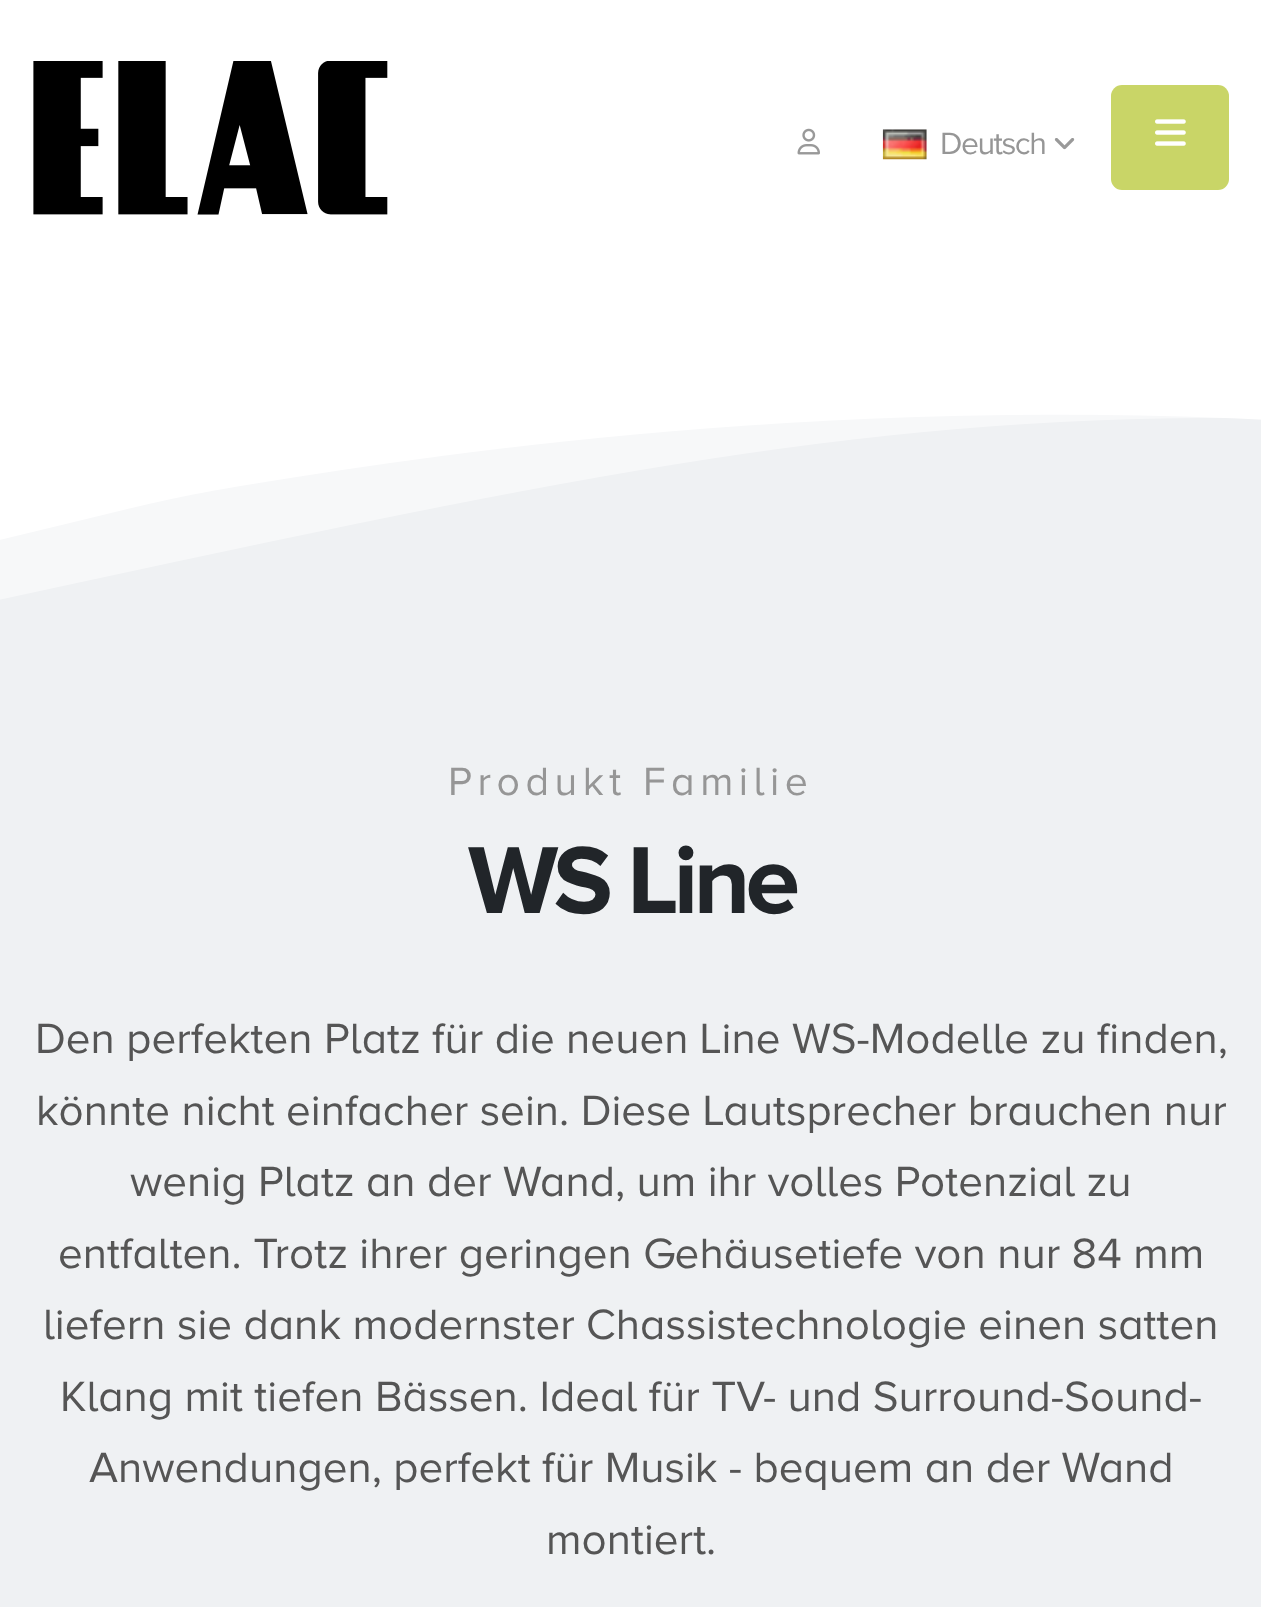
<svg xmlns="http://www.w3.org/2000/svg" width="1261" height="1607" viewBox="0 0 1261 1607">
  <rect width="100%" height="100%" fill="#ffffff"/>
  <image x="33" y="61" width="355" height="154" href="img1.png"/>
  <image x="797" y="128" width="23" height="27" href="img2.png"/>
  <image x="882" y="129" width="45" height="31" href="img3.png"/>
  <text x="940" y="154" font-family="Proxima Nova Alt" font-size="32" letter-spacing="-1.5" fill="#969696">Deutsch</text>
  <image x="1054" y="138" width="21" height="12" href="img4.png"/>
  <rect x="1111" y="85" width="118" height="105" rx="11" fill="#c9d567"/>
  <image x="1155" y="119" width="31" height="27" href="img5.png"/>
  <rect x="0" y="414" width="1261" height="1193" fill="#eff1f3"/>
  <image x="0" y="344" width="1261" height="256" href="img6.png"/>
  <text x="448" y="795" font-family="Proxima Nova Alt" font-size="41" letter-spacing="5.5" fill="#969696">Produkt Familie</text>
  <text x="468" y="913" font-family="Proxima Nova Alt" font-size="98.5" font-weight="bold" letter-spacing="-5" fill="#212529">WS Line</text>
  <text x="35" y="1053" font-family="Proxima Nova Alt" font-size="44" fill="#555555">Den perfekten Platz für die neuen Line WS-Modelle zu finden,</text>
  <text x="36" y="1125" font-family="Proxima Nova Alt" font-size="44" fill="#555555">könnte nicht einfacher sein. Diese Lautsprecher brauchen nur</text>
  <text x="130" y="1196" font-family="Proxima Nova Alt" font-size="44" fill="#555555">wenig Platz an der Wand, um ihr volles Potenzial zu</text>
  <text x="58" y="1268" font-family="Proxima Nova Alt" font-size="44" fill="#555555">entfalten. Trotz ihrer geringen Gehäusetiefe von nur 84 mm</text>
  <text x="43" y="1339" font-family="Proxima Nova Alt" font-size="44" fill="#555555">liefern sie dank modernster Chassistechnologie einen satten</text>
  <text x="60" y="1411" font-family="Proxima Nova Alt" font-size="44" fill="#555555">Klang mit tiefen Bässen. Ideal für TV- und Surround-Sound-</text>
  <text x="89" y="1482" font-family="Proxima Nova Alt" font-size="44" fill="#555555">Anwendungen, perfekt für Musik - bequem an der Wand</text>
  <text x="546" y="1554" font-family="Proxima Nova Alt" font-size="44" fill="#555555">montiert.</text>
</svg>
